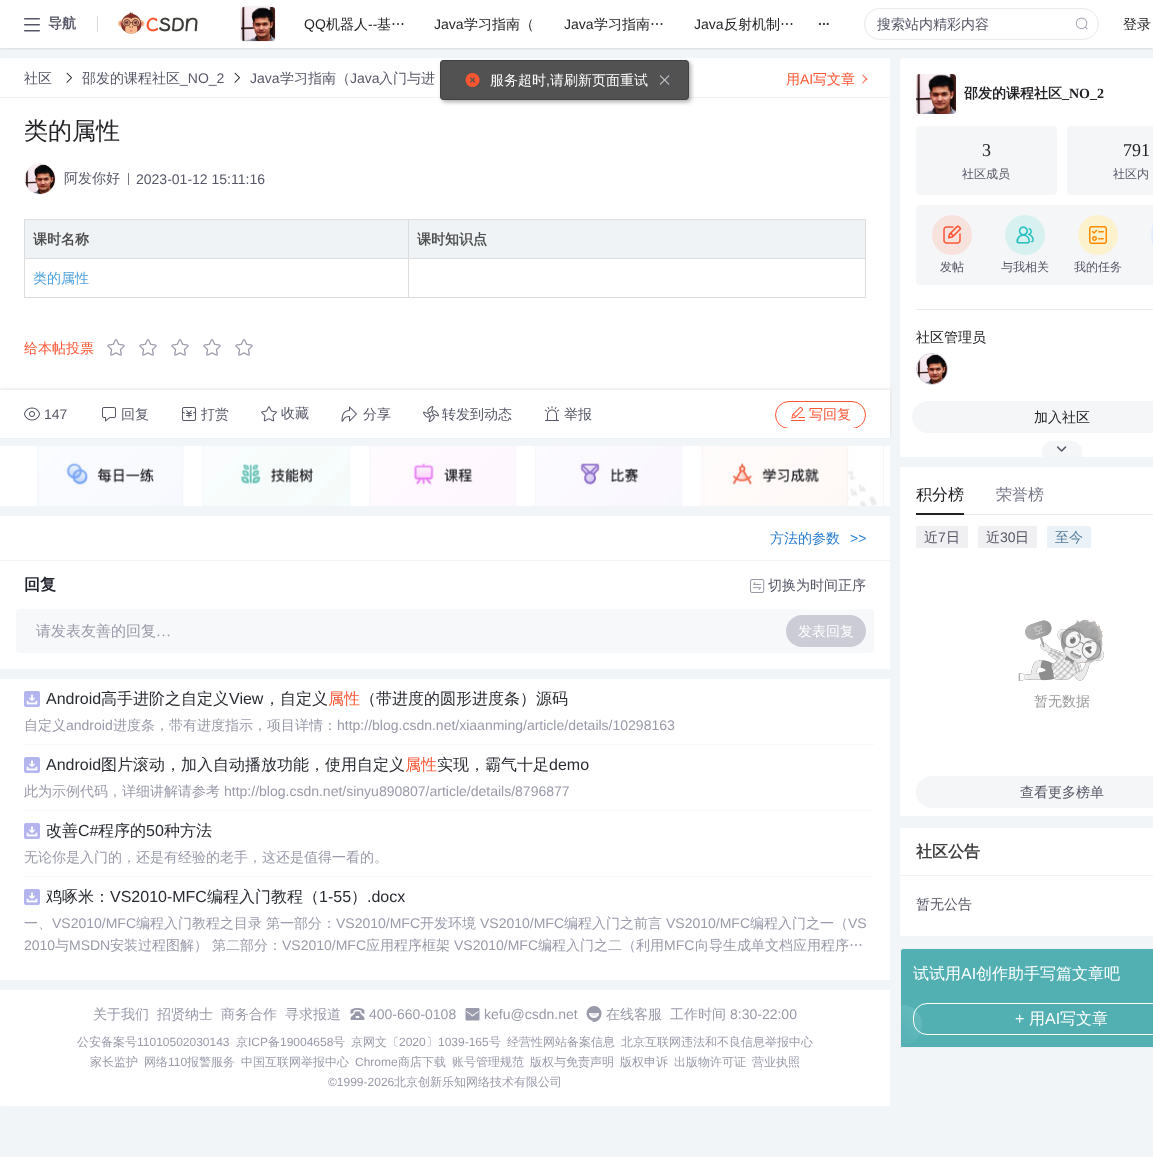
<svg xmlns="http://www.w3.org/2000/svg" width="1153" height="1157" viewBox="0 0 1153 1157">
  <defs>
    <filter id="blur1" x="-50%" y="-200%" width="200%" height="500%"><feGaussianBlur stdDeviation="1"/></filter>
    <clipPath id="clip1"><rect x="865" y="9" width="233" height="30" rx="15"/></clipPath>
    <filter id="blur2" x="-50%" y="-200%" width="200%" height="500%"><feGaussianBlur stdDeviation="1.5"/></filter>
    <clipPath id="clip2"><rect x="0" y="400" width="890" height="28"/></clipPath>
    <clipPath id="clip3"><path d="M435 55H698V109H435ZM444 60H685C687 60 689 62 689 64V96C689 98 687 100 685 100H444C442 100 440 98 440 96V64C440 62 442 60 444 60Z" clip-rule="evenodd"/></clipPath>
    <filter id="blur3" x="-50%" y="-200%" width="200%" height="500%"><feGaussianBlur stdDeviation="2"/></filter>
  </defs>
  <rect width="100%" height="100%" fill="#f2f5f7"/>
  <rect x="0" y="1" width="1153" height="48" fill="#000000" fill-opacity="0.1" filter="url(#blur1)"/>
  <rect x="0" y="0" width="1153" height="48" fill="#ffffff"/>
  <image x="24" y="18" width="16" height="14" href="img1.png"/>
  <text x="48" y="28" font-family="WenQuanYi Zen Hei" font-size="14" font-weight="bold" fill="#555666">导航</text>
  <rect x="97" y="16" width="1" height="16" rx="0.5" fill="#d8d8d8"/>
  <image x="118" y="12" width="80" height="22" href="img2.png"/>
  <rect x="240.5" y="6.5" width="35" height="35" rx="3.5" fill="none" stroke="#f2f2f2"/>
  <image x="241" y="7" width="34" height="34" href="img3.png"/>
  <text x="304" y="29" font-family="Liberation Sans" font-size="14" fill="#222226">QQ</text>
  <text x="326" y="29" font-family="WenQuanYi Zen Hei" font-size="14" font-weight="500" fill="#222226">机器人</text>
  <text x="368" y="29" font-family="Liberation Sans" font-size="14" fill="#222226">--</text>
  <text x="377" y="29" font-family="WenQuanYi Zen Hei" font-size="14" font-weight="500" fill="#222226">基…</text>
  <text x="434" y="29" font-family="Liberation Sans" font-size="14" fill="#222226">Java</text>
  <text x="464" y="29" font-family="WenQuanYi Zen Hei" font-size="14" font-weight="500" fill="#222226">学习指南（</text>
  <text x="564" y="29" font-family="Liberation Sans" font-size="14" fill="#222226">Java</text>
  <text x="594" y="29" font-family="WenQuanYi Zen Hei" font-size="14" font-weight="500" fill="#222226">学习指南…</text>
  <text x="694" y="29" font-family="Liberation Sans" font-size="14" fill="#222226">Java</text>
  <text x="724" y="29" font-family="WenQuanYi Zen Hei" font-size="14" font-weight="500" fill="#222226">反射机制…</text>
  <text x="818" y="25" font-family="Liberation Sans" font-size="14" font-weight="bold" fill="#404040">...</text>
  <rect x="864.5" y="8.5" width="234" height="31" rx="15.5" fill="none" stroke="#e8e8ed"/>
  <g clip-path="url(#clip1)">
    <rect x="877" y="9" width="195" height="30" fill="#ffffff"/>
  </g>
  <text x="877" y="29" font-family="WenQuanYi Zen Hei" font-size="14" font-weight="500" fill="#555666">搜索站内精彩内容</text>
  <image x="1075" y="17" width="13" height="13" href="img4.png"/>
  <text x="1123" y="29" font-family="WenQuanYi Zen Hei" font-size="14" font-weight="500" fill="#222226">登录</text>
  <path d="M2 58H888C889 58 890 59 890 60V98H0V60C0 59 1 58 2 58Z" fill="#ffffff"/>
  <rect x="0" y="97" width="890" height="1" fill="#f2f2f2"/>
  <text x="24" y="83" font-family="WenQuanYi Zen Hei" font-size="14" font-weight="500" fill="#555666">社区</text>
  <image x="66" y="72" width="6" height="11" href="img5.png"/>
  <text x="82" y="83" font-family="WenQuanYi Zen Hei" font-size="14" font-weight="500" fill="#555666">邵发的课程社区</text>
  <text x="180" y="83" font-family="Liberation Sans" font-size="14" fill="#555666">_NO_2</text>
  <image x="234" y="72" width="6" height="11" href="img5.png"/>
  <text x="250" y="83" font-family="Liberation Sans" font-size="14" fill="#555666">Java</text>
  <text x="280" y="83" font-family="WenQuanYi Zen Hei" font-size="14" font-weight="500" fill="#555666">学习指南（</text>
  <text x="350" y="83" font-family="Liberation Sans" font-size="14" fill="#555666">Java</text>
  <text x="379" y="83" font-family="WenQuanYi Zen Hei" font-size="14" font-weight="500" fill="#555666">入门与进</text>
  <image x="473" y="72" width="6" height="11" href="img5.png"/>
  <text x="786" y="84" font-family="WenQuanYi Zen Hei" font-size="14" font-weight="500" fill="#fc5533">用</text>
  <text x="800" y="84" font-family="Liberation Sans" font-size="14" fill="#fc5533">AI</text>
  <text x="813" y="84" font-family="WenQuanYi Zen Hei" font-size="14" font-weight="500" fill="#fc5533">写文章</text>
  <path d="M862 75L862.5 74.5L867.5 79L866.5 79.5Z" fill="#fc5531"/>
  <path d="M862 83L866.5 78.5L867.5 79L862.5 83.5Z" fill="#fc5531"/>
  <rect x="0" y="98" width="890" height="292" fill="#ffffff"/>
  <text x="24" y="139" font-family="WenQuanYi Zen Hei" font-size="24" font-weight="500" fill="#222226">类的属性</text>
  <circle cx="40" cy="179" r="15.5" fill="none" stroke="#f2f2f2"/>
  <image x="25" y="164" width="30" height="30" href="img6.png"/>
  <text x="64" y="183" font-family="WenQuanYi Zen Hei" font-size="14" font-weight="500" fill="#555666">阿发你好</text>
  <rect x="128" y="173" width="1" height="12" fill="#777888"/>
  <text x="136" y="184" font-family="Liberation Sans" font-size="14" fill="#555666">2023-01-12 15:11:16</text>
  <rect x="24" y="219" width="842" height="1" fill="#dddddd"/>
  <rect x="25" y="220" width="383" height="38" fill="#eff3f5"/>
  <text x="33" y="244" font-family="WenQuanYi Zen Hei" font-size="14" font-weight="bold" fill="#4f4f4f">课时名称</text>
  <rect x="409" y="220" width="456" height="38" fill="#eff3f5"/>
  <text x="417" y="244" font-family="WenQuanYi Zen Hei" font-size="14" font-weight="bold" fill="#4f4f4f">课时知识点</text>
  <rect x="24" y="258" width="842" height="1" fill="#dddddd"/>
  <rect x="865" y="219" width="1" height="79" fill="#dddddd"/>
  <rect x="408" y="297" width="458" height="1" fill="#dddddd"/>
  <rect x="408" y="219" width="1" height="79" fill="#dddddd"/>
  <rect x="24" y="297" width="385" height="1" fill="#dddddd"/>
  <rect x="24" y="219" width="1" height="79" fill="#dddddd"/>
  <text x="33" y="283" font-family="WenQuanYi Zen Hei" font-size="14" font-weight="500" fill="#4ea1db">类的属性</text>
  <text x="24" y="353" font-family="WenQuanYi Zen Hei" font-size="14" font-weight="500" fill="#fc5533">给本帖投票</text>
  <image x="107" y="339" width="18" height="17" href="img7.png"/>
  <image x="139" y="339" width="18" height="17" href="img7.png"/>
  <image x="171" y="339" width="18" height="17" href="img7.png"/>
  <image x="203" y="339" width="18" height="17" href="img7.png"/>
  <image x="235" y="339" width="18" height="17" href="img7.png"/>
  <rect x="0" y="389" width="890" height="48" fill="#121212" fill-opacity="0.1" filter="url(#blur2)"/>
  <rect x="0" y="390" width="890" height="48" fill="#ffffff"/>
  <image x="24" y="407" width="16" height="14" href="img8.png"/>
  <text x="44" y="419" font-family="Liberation Sans" font-size="14" fill="#555666">147</text>
  <image x="102" y="407" width="14" height="15" href="img9.png"/>
  <text x="121" y="419" font-family="WenQuanYi Zen Hei" font-size="14" font-weight="500" fill="#555666">回复</text>
  <image x="182" y="407" width="14" height="14" href="img10.png"/>
  <text x="201" y="419" font-family="WenQuanYi Zen Hei" font-size="14" font-weight="500" fill="#555666">打赏</text>
  <image x="261" y="406" width="16" height="16" href="img11.png"/>
  <text x="281" y="418" font-family="WenQuanYi Zen Hei" font-size="14" font-weight="500" fill="#555666">收藏</text>
  <image x="341" y="406" width="16" height="16" href="img12.png"/>
  <text x="363" y="419" font-family="WenQuanYi Zen Hei" font-size="14" font-weight="500" fill="#555666">分享</text>
  <image x="423" y="406" width="16" height="16" href="img13.png"/>
  <text x="442" y="419" font-family="WenQuanYi Zen Hei" font-size="14" font-weight="500" fill="#555666">转发到动态</text>
  <image x="544" y="406" width="16" height="15" href="img14.png"/>
  <text x="564" y="419" font-family="WenQuanYi Zen Hei" font-size="14" font-weight="500" fill="#555666">举报</text>
  <g clip-path="url(#clip2)">
    <rect x="775.5" y="401.5" width="90" height="27" rx="13.5" fill="none" stroke="#fc5531"/>
  </g>
  <image x="791" y="406" width="14" height="15" href="img15.png"/>
  <text x="809" y="419" font-family="WenQuanYi Zen Hei" font-size="14" font-weight="500" fill="#fc5533">写回复</text>
  <rect x="0" y="446" width="890" height="60" fill="#ffffff"/>
  <image x="37" y="446" width="847" height="60" href="img16.png"/>
  <rect x="0" y="516" width="890" height="44" fill="#ffffff"/>
  <text x="770" y="543" font-family="WenQuanYi Zen Hei" font-size="14" font-weight="500" fill="#277ccc">方法的参数</text>
  <text x="850" y="543" font-family="Liberation Sans" font-size="14" fill="#277ccc">&gt;&gt;</text>
  <rect x="0" y="561" width="890" height="108" fill="#ffffff"/>
  <text x="24" y="590" font-family="WenQuanYi Zen Hei" font-size="16" font-weight="bold" fill="#20232c">回复</text>
  <image x="750" y="579" width="15" height="14" href="img17.png"/>
  <text x="768" y="590" font-family="WenQuanYi Zen Hei" font-size="14" font-weight="500" fill="#555666">切换为时间正序</text>
  <rect x="16" y="609" width="858" height="44" rx="4" fill="#f7f8f9"/>
  <text x="36" y="636" font-family="WenQuanYi Zen Hei" font-size="15" font-weight="500" fill="#999aaa">请发表友善的回复</text>
  <text x="156" y="636" font-family="Liberation Serif" font-size="15" fill="#999aaa">…</text>
  <rect x="786" y="615" width="80" height="32" rx="16" fill="#ccccd7"/>
  <text x="798" y="636" font-family="WenQuanYi Zen Hei" font-size="14" font-weight="500" fill="#ffffff">发表回复</text>
  <rect x="0" y="679" width="890" height="301" fill="#ffffff"/>
  <rect x="24" y="744" width="850" height="1" fill="#f7f7fc"/>
  <image x="24" y="691" width="16" height="16" href="img18.png"/>
  <text x="46" y="704" font-family="Liberation Sans" font-size="16" fill="#282b31">Android</text>
  <text x="101" y="704" font-family="WenQuanYi Zen Hei" font-size="16" font-weight="500" fill="#282b31">高手进阶之自定义</text>
  <text x="229" y="704" font-family="Liberation Sans" font-size="16" fill="#282b31">View</text>
  <text x="264" y="704" font-family="WenQuanYi Zen Hei" font-size="16" font-weight="500" fill="#282b31">，自定义</text>
  <text x="328" y="704" font-family="WenQuanYi Zen Hei" font-size="16" font-weight="500" fill="#fc5533">属性</text>
  <text x="360" y="704" font-family="WenQuanYi Zen Hei" font-size="16" font-weight="500" fill="#282b31">（带进度的圆形进度条）源码</text>
  <text x="24" y="730" font-family="WenQuanYi Zen Hei" font-size="14" font-weight="500" fill="#999aaa">自定义</text>
  <text x="66" y="730" font-family="Liberation Sans" font-size="14" fill="#999aaa">android</text>
  <text x="113" y="730" font-family="WenQuanYi Zen Hei" font-size="14" font-weight="500" fill="#999aaa">进度条，带有进度指示，项目详情：</text>
  <text x="337" y="730" font-family="Liberation Sans" font-size="14" fill="#999aaa">http://blog.csdn.net/xiaanming/article/details/10298163</text>
  <rect x="24" y="810" width="850" height="1" fill="#f7f7fc"/>
  <image x="24" y="757" width="16" height="16" href="img18.png"/>
  <text x="46" y="770" font-family="Liberation Sans" font-size="16" fill="#282b31">Android</text>
  <text x="101" y="770" font-family="WenQuanYi Zen Hei" font-size="16" font-weight="500" fill="#282b31">图片滚动，加入自动播放功能，使用自定义</text>
  <text x="405" y="770" font-family="WenQuanYi Zen Hei" font-size="16" font-weight="500" fill="#fc5533">属性</text>
  <text x="437" y="770" font-family="WenQuanYi Zen Hei" font-size="16" font-weight="500" fill="#282b31">实现，霸气十足</text>
  <text x="549" y="770" font-family="Liberation Sans" font-size="16" fill="#282b31">demo</text>
  <text x="24" y="796" font-family="WenQuanYi Zen Hei" font-size="14" font-weight="500" fill="#999aaa">此为示例代码，详细讲解请参考</text>
  <text x="224" y="796" font-family="Liberation Sans" font-size="14" fill="#999aaa">http://blog.csdn.net/sinyu890807/article/details/8796877</text>
  <rect x="24" y="876" width="850" height="1" fill="#f7f7fc"/>
  <image x="24" y="823" width="16" height="16" href="img18.png"/>
  <text x="46" y="836" font-family="WenQuanYi Zen Hei" font-size="16" font-weight="500" fill="#282b31">改善</text>
  <text x="78" y="836" font-family="Liberation Sans" font-size="16" fill="#282b31">C#</text>
  <text x="98" y="836" font-family="WenQuanYi Zen Hei" font-size="16" font-weight="500" fill="#282b31">程序的</text>
  <text x="146" y="836" font-family="Liberation Sans" font-size="16" fill="#282b31">50</text>
  <text x="164" y="836" font-family="WenQuanYi Zen Hei" font-size="16" font-weight="500" fill="#282b31">种方法</text>
  <text x="24" y="862" font-family="WenQuanYi Zen Hei" font-size="14" font-weight="500" fill="#999aaa">无论你是入门的，还是有经验的老手，这还是值得一看的。</text>
  <image x="24" y="889" width="16" height="16" href="img18.png"/>
  <text x="46" y="902" font-family="WenQuanYi Zen Hei" font-size="16" font-weight="500" fill="#282b31">鸡啄米：</text>
  <text x="110" y="902" font-family="Liberation Sans" font-size="16" fill="#282b31">VS2010-MFC</text>
  <text x="207" y="902" font-family="WenQuanYi Zen Hei" font-size="16" font-weight="500" fill="#282b31">编程入门教程（</text>
  <text x="319" y="902" font-family="Liberation Sans" font-size="16" fill="#282b31">1-55</text>
  <text x="351" y="902" font-family="WenQuanYi Zen Hei" font-size="16" font-weight="500" fill="#282b31">）</text>
  <text x="367" y="902" font-family="Liberation Sans" font-size="16" fill="#282b31">.docx</text>
  <text x="24" y="928" font-family="WenQuanYi Zen Hei" font-size="14" font-weight="500" fill="#999aaa">一、</text>
  <text x="52" y="928" font-family="Liberation Sans" font-size="14" fill="#999aaa">VS2010/MFC</text>
  <text x="136" y="928" font-family="WenQuanYi Zen Hei" font-size="14" font-weight="500" fill="#999aaa">编程入门教程之目录</text>
  <text x="266" y="928" font-family="WenQuanYi Zen Hei" font-size="14" font-weight="500" fill="#999aaa">第一部分：</text>
  <text x="336" y="928" font-family="Liberation Sans" font-size="14" fill="#999aaa">VS2010/MFC</text>
  <text x="420" y="928" font-family="WenQuanYi Zen Hei" font-size="14" font-weight="500" fill="#999aaa">开发环境</text>
  <text x="480" y="928" font-family="Liberation Sans" font-size="14" fill="#999aaa">VS2010/MFC</text>
  <text x="564" y="928" font-family="WenQuanYi Zen Hei" font-size="14" font-weight="500" fill="#999aaa">编程入门之前言</text>
  <text x="666" y="928" font-family="Liberation Sans" font-size="14" fill="#999aaa">VS2010/MFC</text>
  <text x="750" y="928" font-family="WenQuanYi Zen Hei" font-size="14" font-weight="500" fill="#999aaa">编程入门之一（</text>
  <text x="848" y="928" font-family="Liberation Sans" font-size="14" fill="#999aaa">VS</text>
  <text x="24" y="950" font-family="Liberation Sans" font-size="14" fill="#999aaa">2010</text>
  <text x="55" y="950" font-family="WenQuanYi Zen Hei" font-size="14" font-weight="500" fill="#999aaa">与</text>
  <text x="69" y="950" font-family="Liberation Sans" font-size="14" fill="#999aaa">MSDN</text>
  <text x="110" y="950" font-family="WenQuanYi Zen Hei" font-size="14" font-weight="500" fill="#999aaa">安装过程图解）</text>
  <text x="212" y="950" font-family="WenQuanYi Zen Hei" font-size="14" font-weight="500" fill="#999aaa">第二部分：</text>
  <text x="282" y="950" font-family="Liberation Sans" font-size="14" fill="#999aaa">VS2010/MFC</text>
  <text x="366" y="950" font-family="WenQuanYi Zen Hei" font-size="14" font-weight="500" fill="#999aaa">应用程序框架</text>
  <text x="454" y="950" font-family="Liberation Sans" font-size="14" fill="#999aaa">VS2010/MFC</text>
  <text x="538" y="950" font-family="WenQuanYi Zen Hei" font-size="14" font-weight="500" fill="#999aaa">编程入门之二（利用</text>
  <text x="664" y="950" font-family="Liberation Sans" font-size="14" fill="#999aaa">MFC</text>
  <text x="695" y="950" font-family="WenQuanYi Zen Hei" font-size="14" font-weight="500" fill="#999aaa">向导生成单文档应用程序…</text>
  <path d="M0 990H890V1104C890 1105 889 1106 888 1106H2C1 1106 0 1105 0 1104Z" fill="#ffffff"/>
  <text x="93" y="1019" font-family="WenQuanYi Zen Hei" font-size="14" font-weight="500" fill="#999aaa">关于我们</text>
  <text x="157" y="1019" font-family="WenQuanYi Zen Hei" font-size="14" font-weight="500" fill="#999aaa">招贤纳士</text>
  <text x="221" y="1019" font-family="WenQuanYi Zen Hei" font-size="14" font-weight="500" fill="#999aaa">商务合作</text>
  <text x="285" y="1019" font-family="WenQuanYi Zen Hei" font-size="14" font-weight="500" fill="#999aaa">寻求报道</text>
  <image x="350" y="1008" width="15" height="12" href="img19.png"/>
  <text x="369" y="1019" font-family="Liberation Sans" font-size="14" fill="#999aaa">400-660-0108</text>
  <image x="465" y="1008" width="15" height="13" href="img20.png"/>
  <text x="484" y="1019" font-family="Liberation Sans" font-size="14" fill="#999aaa">kefu@csdn.net</text>
  <image x="586" y="1006" width="16" height="16" href="img21.png"/>
  <text x="606" y="1019" font-family="WenQuanYi Zen Hei" font-size="14" font-weight="500" fill="#999aaa">在线客服</text>
  <text x="670" y="1019" font-family="WenQuanYi Zen Hei" font-size="14" font-weight="500" fill="#999aaa">工作时间</text>
  <text x="730" y="1019" font-family="Liberation Sans" font-size="14" fill="#999aaa">8:30-22:00</text>
  <text x="77" y="1046" font-family="WenQuanYi Zen Hei" font-size="12" font-weight="500" fill="#999aaa">公安备案号</text>
  <text x="137" y="1046" font-family="Liberation Sans" font-size="12" fill="#999aaa">11010502030143</text>
  <text x="236" y="1046" font-family="WenQuanYi Zen Hei" font-size="12" font-weight="500" fill="#999aaa">京</text>
  <text x="248" y="1046" font-family="Liberation Sans" font-size="12" fill="#999aaa">ICP</text>
  <text x="268" y="1046" font-family="WenQuanYi Zen Hei" font-size="12" font-weight="500" fill="#999aaa">备</text>
  <text x="280" y="1046" font-family="Liberation Sans" font-size="12" fill="#999aaa">19004658</text>
  <text x="333" y="1046" font-family="WenQuanYi Zen Hei" font-size="12" font-weight="500" fill="#999aaa">号</text>
  <text x="351" y="1046" font-family="WenQuanYi Zen Hei" font-size="12" font-weight="500" fill="#999aaa">京网文〔</text>
  <text x="399" y="1046" font-family="Liberation Sans" font-size="12" fill="#999aaa">2020</text>
  <text x="426" y="1046" font-family="WenQuanYi Zen Hei" font-size="12" font-weight="500" fill="#999aaa">〕</text>
  <text x="438" y="1046" font-family="Liberation Sans" font-size="12" fill="#999aaa">1039-165</text>
  <text x="489" y="1046" font-family="WenQuanYi Zen Hei" font-size="12" font-weight="500" fill="#999aaa">号</text>
  <text x="507" y="1046" font-family="WenQuanYi Zen Hei" font-size="12" font-weight="500" fill="#999aaa">经营性网站备案信息</text>
  <text x="621" y="1046" font-family="WenQuanYi Zen Hei" font-size="12" font-weight="500" fill="#999aaa">北京互联网违法和不良信息举报中心</text>
  <text x="90" y="1066" font-family="WenQuanYi Zen Hei" font-size="12" font-weight="500" fill="#999aaa">家长监护</text>
  <text x="144" y="1066" font-family="WenQuanYi Zen Hei" font-size="12" font-weight="500" fill="#999aaa">网络</text>
  <text x="168" y="1066" font-family="Liberation Sans" font-size="12" fill="#999aaa">110</text>
  <text x="187" y="1066" font-family="WenQuanYi Zen Hei" font-size="12" font-weight="500" fill="#999aaa">报警服务</text>
  <text x="241" y="1066" font-family="WenQuanYi Zen Hei" font-size="12" font-weight="500" fill="#999aaa">中国互联网举报中心</text>
  <text x="355" y="1066" font-family="Liberation Sans" font-size="12" fill="#999aaa">Chrome</text>
  <text x="398" y="1066" font-family="WenQuanYi Zen Hei" font-size="12" font-weight="500" fill="#999aaa">商店下载</text>
  <text x="452" y="1066" font-family="WenQuanYi Zen Hei" font-size="12" font-weight="500" fill="#999aaa">账号管理规范</text>
  <text x="530" y="1066" font-family="WenQuanYi Zen Hei" font-size="12" font-weight="500" fill="#999aaa">版权与免责声明</text>
  <text x="620" y="1066" font-family="WenQuanYi Zen Hei" font-size="12" font-weight="500" fill="#999aaa">版权申诉</text>
  <text x="674" y="1066" font-family="WenQuanYi Zen Hei" font-size="12" font-weight="500" fill="#999aaa">出版物许可证</text>
  <text x="752" y="1066" font-family="WenQuanYi Zen Hei" font-size="12" font-weight="500" fill="#999aaa">营业执照</text>
  <text x="328" y="1086" font-family="Liberation Sans" font-size="12" fill="#999aaa">©1999-2026</text>
  <text x="394" y="1086" font-family="WenQuanYi Zen Hei" font-size="12" font-weight="500" fill="#999aaa">北京创新乐知网络技术有限公司</text>
  <rect x="900" y="58" width="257" height="399" rx="4" fill="#ffffff"/>
  <image x="916" y="74" width="40" height="40" href="img22.png"/>
  <text x="964" y="98" font-family="WenQuanYi Zen Hei" font-size="14" font-weight="bold" fill="#222226">邵发的课程社区</text>
  <text x="1062" y="98" font-family="Liberation Serif" font-size="14" font-weight="bold" fill="#222226">_NO_2</text>
  <rect x="916" y="126" width="141" height="69" rx="4" fill="#f5f6f7"/>
  <text x="982" y="156" font-family="Liberation Serif" font-size="18" fill="#222226">3</text>
  <text x="962" y="178" font-family="WenQuanYi Zen Hei" font-size="12" font-weight="500" fill="#555666">社区成员</text>
  <rect x="1067" y="126" width="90" height="69" rx="4" fill="#f5f6f7"/>
  <text x="1123" y="156" font-family="Liberation Serif" font-size="18" fill="#222226">791</text>
  <text x="1113" y="178" font-family="WenQuanYi Zen Hei" font-size="12" font-weight="500" fill="#555666">社区内</text>
  <rect x="916" y="205" width="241" height="80" rx="4" fill="#f5f6f7"/>
  <rect x="1151" y="215" width="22" height="40" rx="20" fill="#e2ebff"/>
  <circle cx="952" cy="235" r="20" fill="#f7e2dd"/>
  <image x="943" y="225" width="19" height="19" href="img23.png"/>
  <text x="940" y="271" font-family="WenQuanYi Zen Hei" font-size="12" font-weight="500" fill="#555666">发帖</text>
  <circle cx="1025" cy="235" r="20" fill="#d7f1f1"/>
  <image x="1016" y="226" width="18" height="18" href="img24.png"/>
  <text x="1001" y="271" font-family="WenQuanYi Zen Hei" font-size="12" font-weight="500" fill="#555666">与我相关</text>
  <circle cx="1098" cy="235" r="20" fill="#fdf2ce"/>
  <image x="1089" y="226" width="18" height="18" href="img25.png"/>
  <text x="1074" y="271" font-family="WenQuanYi Zen Hei" font-size="12" font-weight="500" fill="#555666">我的任务</text>
  <rect x="916" y="309" width="237" height="1" fill="#e8e8ed"/>
  <text x="916" y="342" font-family="WenQuanYi Zen Hei" font-size="14" font-weight="500" fill="#222226">社区管理员</text>
  <circle cx="932" cy="369" r="15.5" fill="none" stroke="#ccccd8"/>
  <image x="917" y="354" width="30" height="30" href="img26.png"/>
  <rect x="912" y="401" width="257" height="32" rx="16" fill="#f5f6f7"/>
  <text x="1034" y="422" font-family="WenQuanYi Zen Hei" font-size="14" font-weight="500" fill="#222226">加入社区</text>
  <path d="M1052 441H1072C1077.5 441 1082 445.5 1082 451V457H1042V451C1042 445.5 1046.5 441 1052 441Z" fill="#f5f6f7"/>
  <image x="1056" y="446" width="11" height="6" href="img27.png"/>
  <rect x="900" y="467" width="253" height="349" fill="#ffffff"/>
  <text x="916" y="500" font-family="WenQuanYi Zen Hei" font-size="16" font-weight="500" fill="#222226">积分榜</text>
  <text x="996" y="500" font-family="WenQuanYi Zen Hei" font-size="16" font-weight="500" fill="#777888">荣誉榜</text>
  <rect x="916" y="513" width="48" height="2" fill="#222226"/>
  <rect x="964" y="514" width="189" height="1" fill="#e8e8ed"/>
  <rect x="916" y="526" width="52" height="22" rx="2" fill="#f0f0f2"/>
  <text x="924" y="542" font-family="WenQuanYi Zen Hei" font-size="14" font-weight="500" fill="#555666">近</text>
  <text x="938" y="542" font-family="Liberation Sans" font-size="14" fill="#555666">7</text>
  <text x="946" y="542" font-family="WenQuanYi Zen Hei" font-size="14" font-weight="500" fill="#555666">日</text>
  <rect x="978" y="526" width="59" height="22" rx="2" fill="#f0f0f2"/>
  <text x="986" y="542" font-family="WenQuanYi Zen Hei" font-size="14" font-weight="500" fill="#555666">近</text>
  <text x="1000" y="542" font-family="Liberation Sans" font-size="14" fill="#555666">30</text>
  <text x="1015" y="542" font-family="WenQuanYi Zen Hei" font-size="14" font-weight="500" fill="#555666">日</text>
  <rect x="1047" y="526" width="44" height="22" rx="2" fill="#ebf2f7"/>
  <text x="1055" y="542" font-family="WenQuanYi Zen Hei" font-size="14" font-weight="500" fill="#507999">至今</text>
  <image x="1018" y="619" width="86" height="62" href="img28.png"/>
  <text x="1034" y="706" font-family="WenQuanYi Zen Hei" font-size="14" font-weight="500" fill="#999999">暂无数据</text>
  <rect x="916" y="776" width="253" height="32" rx="16" fill="#f5f6f7"/>
  <text x="1020" y="797" font-family="WenQuanYi Zen Hei" font-size="14" font-weight="500" fill="#555666">查看更多榜单</text>
  <rect x="900" y="828" width="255" height="108" rx="2" fill="#ffffff"/>
  <rect x="900" y="875" width="253" height="1" fill="#f0f0f2"/>
  <text x="916" y="857" font-family="WenQuanYi Zen Hei" font-size="16" font-weight="bold" fill="#404040">社区公告</text>
  <text x="916" y="909" font-family="WenQuanYi Zen Hei" font-size="14" font-weight="500" fill="#555666">暂无公告</text>
  <image x="900" y="948" width="253" height="100" href="img29.png"/>
  <rect x="900.5" y="948.5" width="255" height="99" rx="1.5" fill="none" stroke="#f0f0f2"/>
  <text x="913" y="979" font-family="WenQuanYi Zen Hei" font-size="16" font-weight="500" fill="#ffffff">试试用</text>
  <text x="961" y="979" font-family="Liberation Sans" font-size="16" fill="#ffffff">AI</text>
  <text x="976" y="979" font-family="WenQuanYi Zen Hei" font-size="16" font-weight="500" fill="#ffffff">创作助手写篇文章吧</text>
  <rect x="913.5" y="1003.5" width="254" height="31" rx="13.5" fill="none" stroke="#ffffff"/>
  <text x="1015" y="1024" font-family="Liberation Sans" font-size="16" fill="#ffffff">+</text>
  <text x="1029" y="1024" font-family="WenQuanYi Zen Hei" font-size="16" font-weight="500" fill="#ffffff">用</text>
  <text x="1045" y="1024" font-family="Liberation Sans" font-size="16" fill="#ffffff">AI</text>
  <text x="1060" y="1024" font-family="WenQuanYi Zen Hei" font-size="16" font-weight="500" fill="#ffffff">写文章</text>
  <g clip-path="url(#clip3)">
    <rect x="442" y="62" width="249" height="40" rx="4" fill="#000000" fill-opacity="0.33" filter="url(#blur3)"/>
  </g>
  <rect x="440" y="60" width="249" height="40" rx="4" fill="#3f3f3f" fill-opacity="0.9"/>
  <rect x="440.5" y="60.5" width="248" height="39" rx="3.5" fill="none" stroke="#3f3f3f" stroke-opacity="0.9"/>
  <image x="465" y="73" width="15" height="14" href="img30.png"/>
  <text x="490" y="85" font-family="WenQuanYi Zen Hei" font-size="14" font-weight="500" fill="#ffffff">服务超时</text>
  <text x="546" y="85" font-family="Liberation Sans" font-size="14" fill="#ffffff">,</text>
  <text x="550" y="85" font-family="WenQuanYi Zen Hei" font-size="14" font-weight="500" fill="#ffffff">请刷新页面重试</text>
  <image x="659" y="75" width="11" height="10" href="img31.png"/>
</svg>
